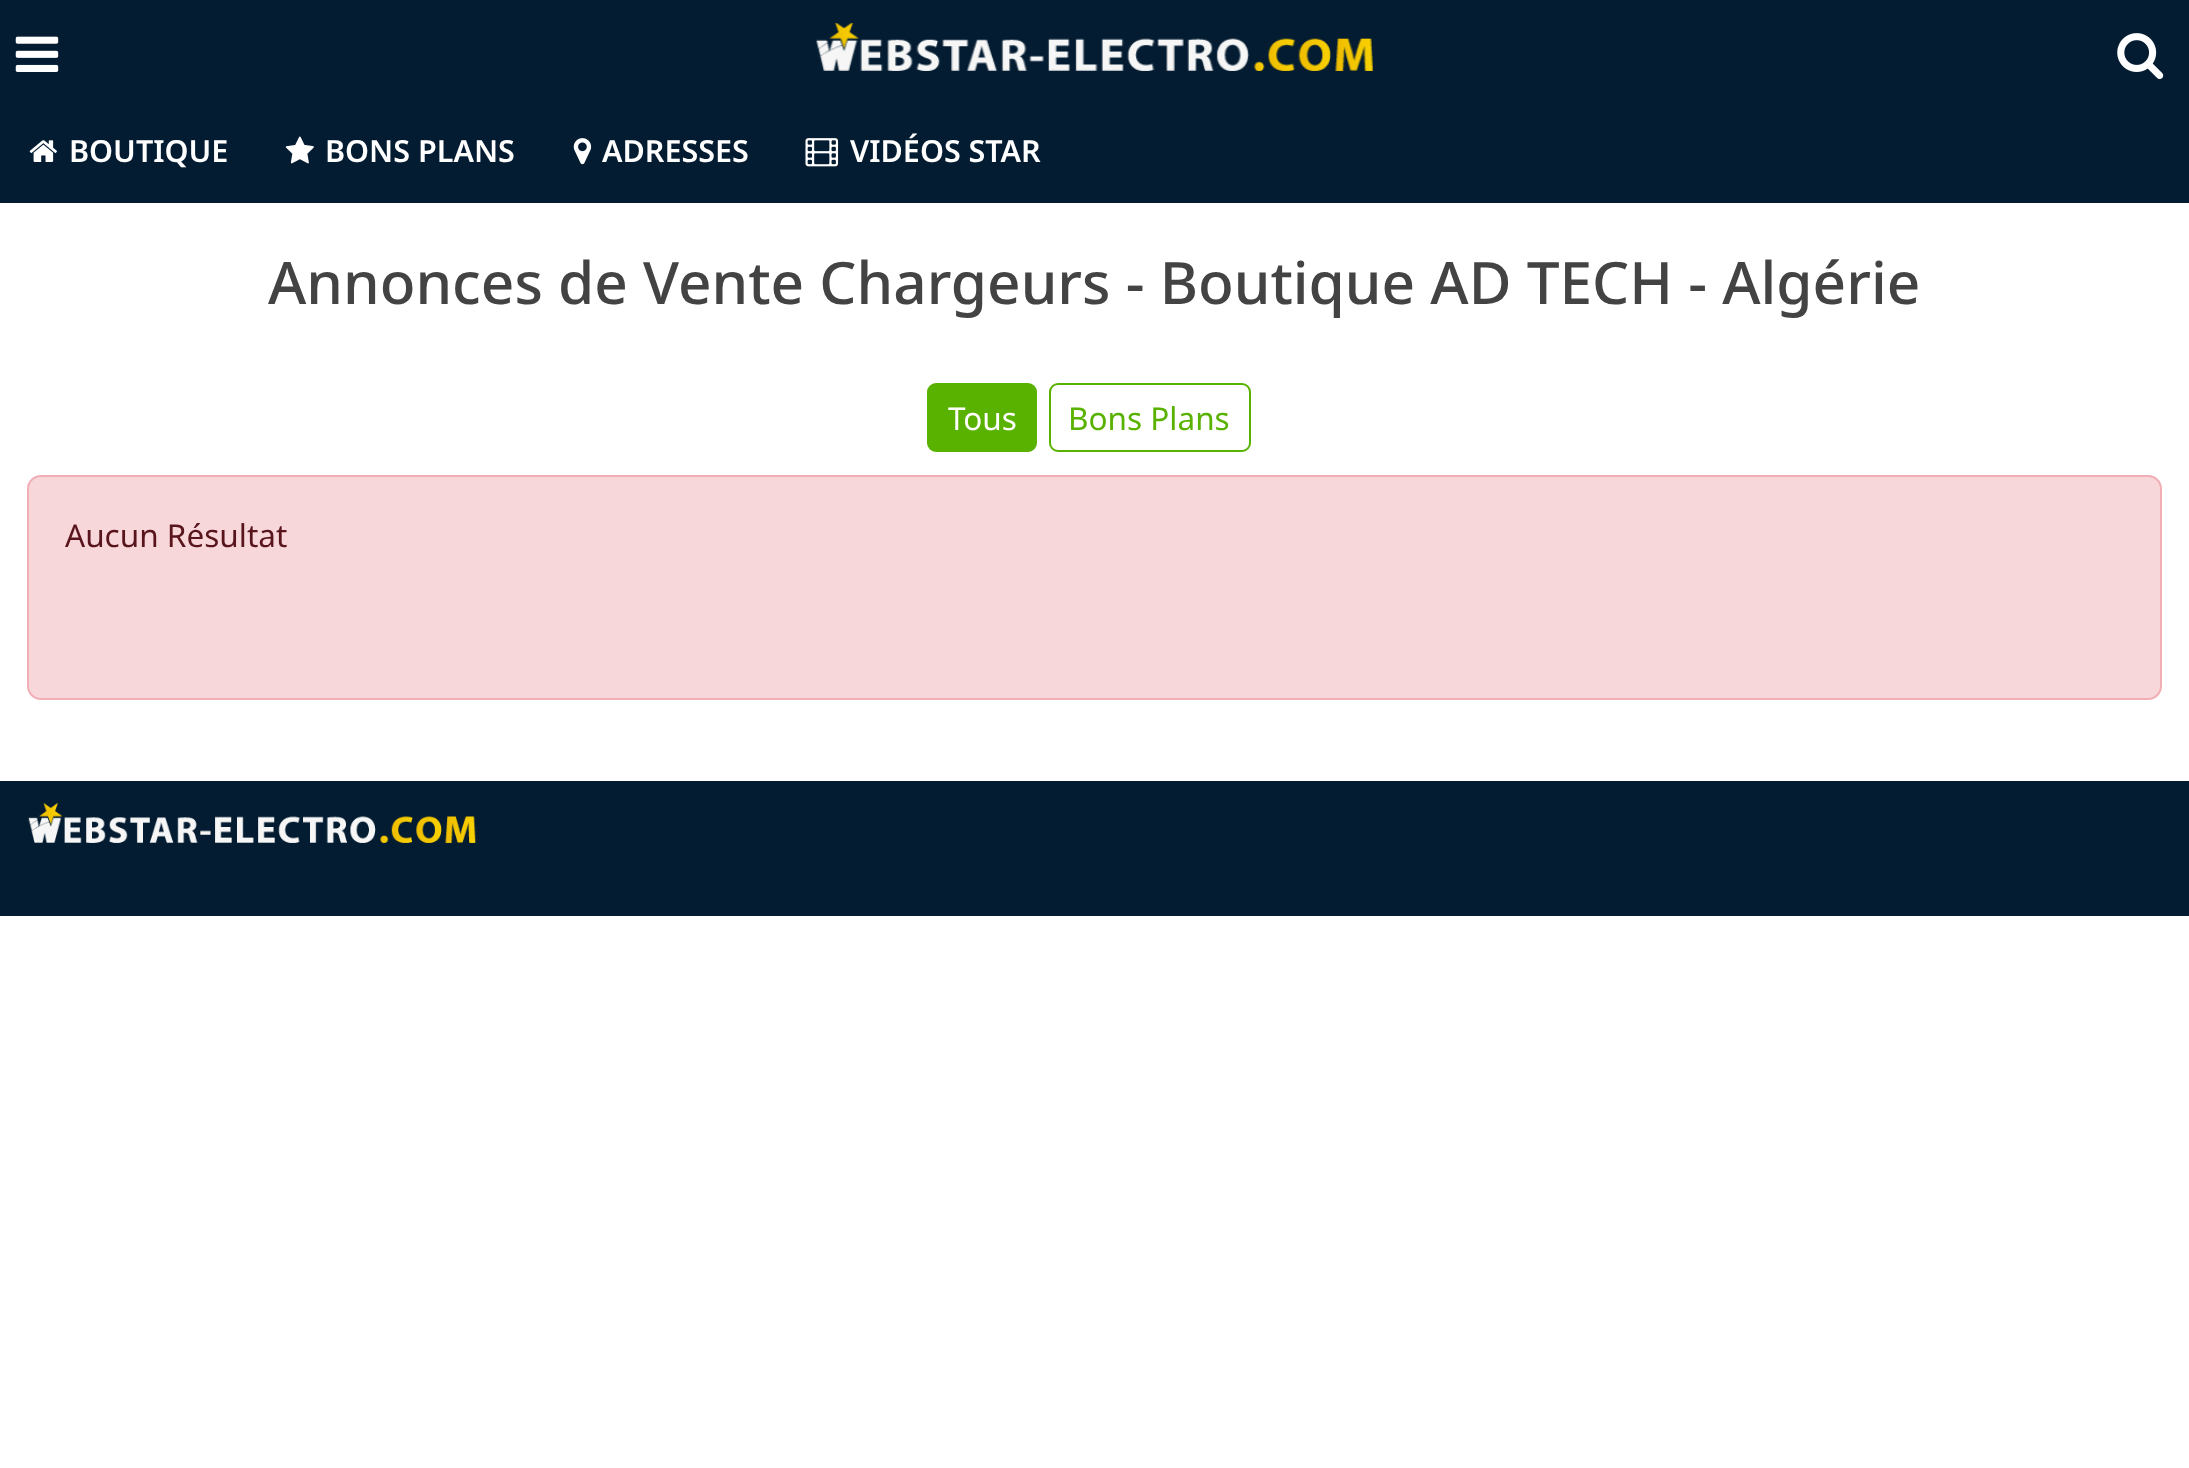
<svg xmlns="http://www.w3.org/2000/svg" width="2189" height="1468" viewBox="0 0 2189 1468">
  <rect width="100%" height="100%" fill="#ffffff"/>
  <rect x="0" y="0" width="2189" height="203" fill="#041c32"/>
  <image x="15" y="36" width="44" height="36" href="img1.png"/>
  <image x="816" y="23" width="557" height="48" href="img2.png"/>
  <image x="2117" y="33" width="47" height="47" href="img3.png"/>
  <image x="29" y="140" width="28" height="22" href="img4.png"/>
  <text x="69" y="162" font-family="Noto Sans" font-size="30.5" font-weight="600" fill="#ffffff">BOUTIQUE</text>
  <image x="285" y="136" width="29" height="28" href="img5.png"/>
  <text x="325" y="162" font-family="Noto Sans" font-size="30.5" font-weight="600" fill="#ffffff">BONS PLANS</text>
  <image x="573" y="138" width="19" height="27" href="img6.png"/>
  <text x="602" y="162" font-family="Noto Sans" font-size="30.5" font-weight="600" fill="#ffffff">ADRESSES</text>
  <image x="805" y="138" width="34" height="29" href="img7.png"/>
  <text x="850" y="162" font-family="Noto Sans" font-size="30.5" font-weight="600" fill="#ffffff">VIDÉOS STAR</text>
  <text x="268" y="304" font-family="Noto Sans" font-size="58.5" font-weight="500" fill="#434343">Annonces de Vente Chargeurs - Boutique AD TECH - Algérie</text>
  <rect x="928" y="384" width="108" height="67" rx="8" fill="#59b200" stroke="#59b200" stroke-width="2"/>
  <text x="948" y="430" font-family="Noto Sans" font-size="31.5" fill="#ffffff">Tous</text>
  <rect x="1050" y="384" width="200" height="67" rx="8" fill="none" stroke="#59b200" stroke-width="2"/>
  <text x="1068" y="430" font-family="Noto Sans" font-size="31.5" fill="#59b200">Bons Plans</text>
  <rect x="28" y="476" width="2133" height="223" rx="13" fill="#f8d7da" stroke="#f1aeb5" stroke-width="2"/>
  <text x="65" y="547" font-family="Noto Sans" font-size="31.5" fill="#58151c">Aucun Résultat</text>
  <rect x="0" y="781" width="2189" height="135" fill="#041c32"/>
  <image x="28" y="803" width="448" height="40" href="img8.png"/>
</svg>
